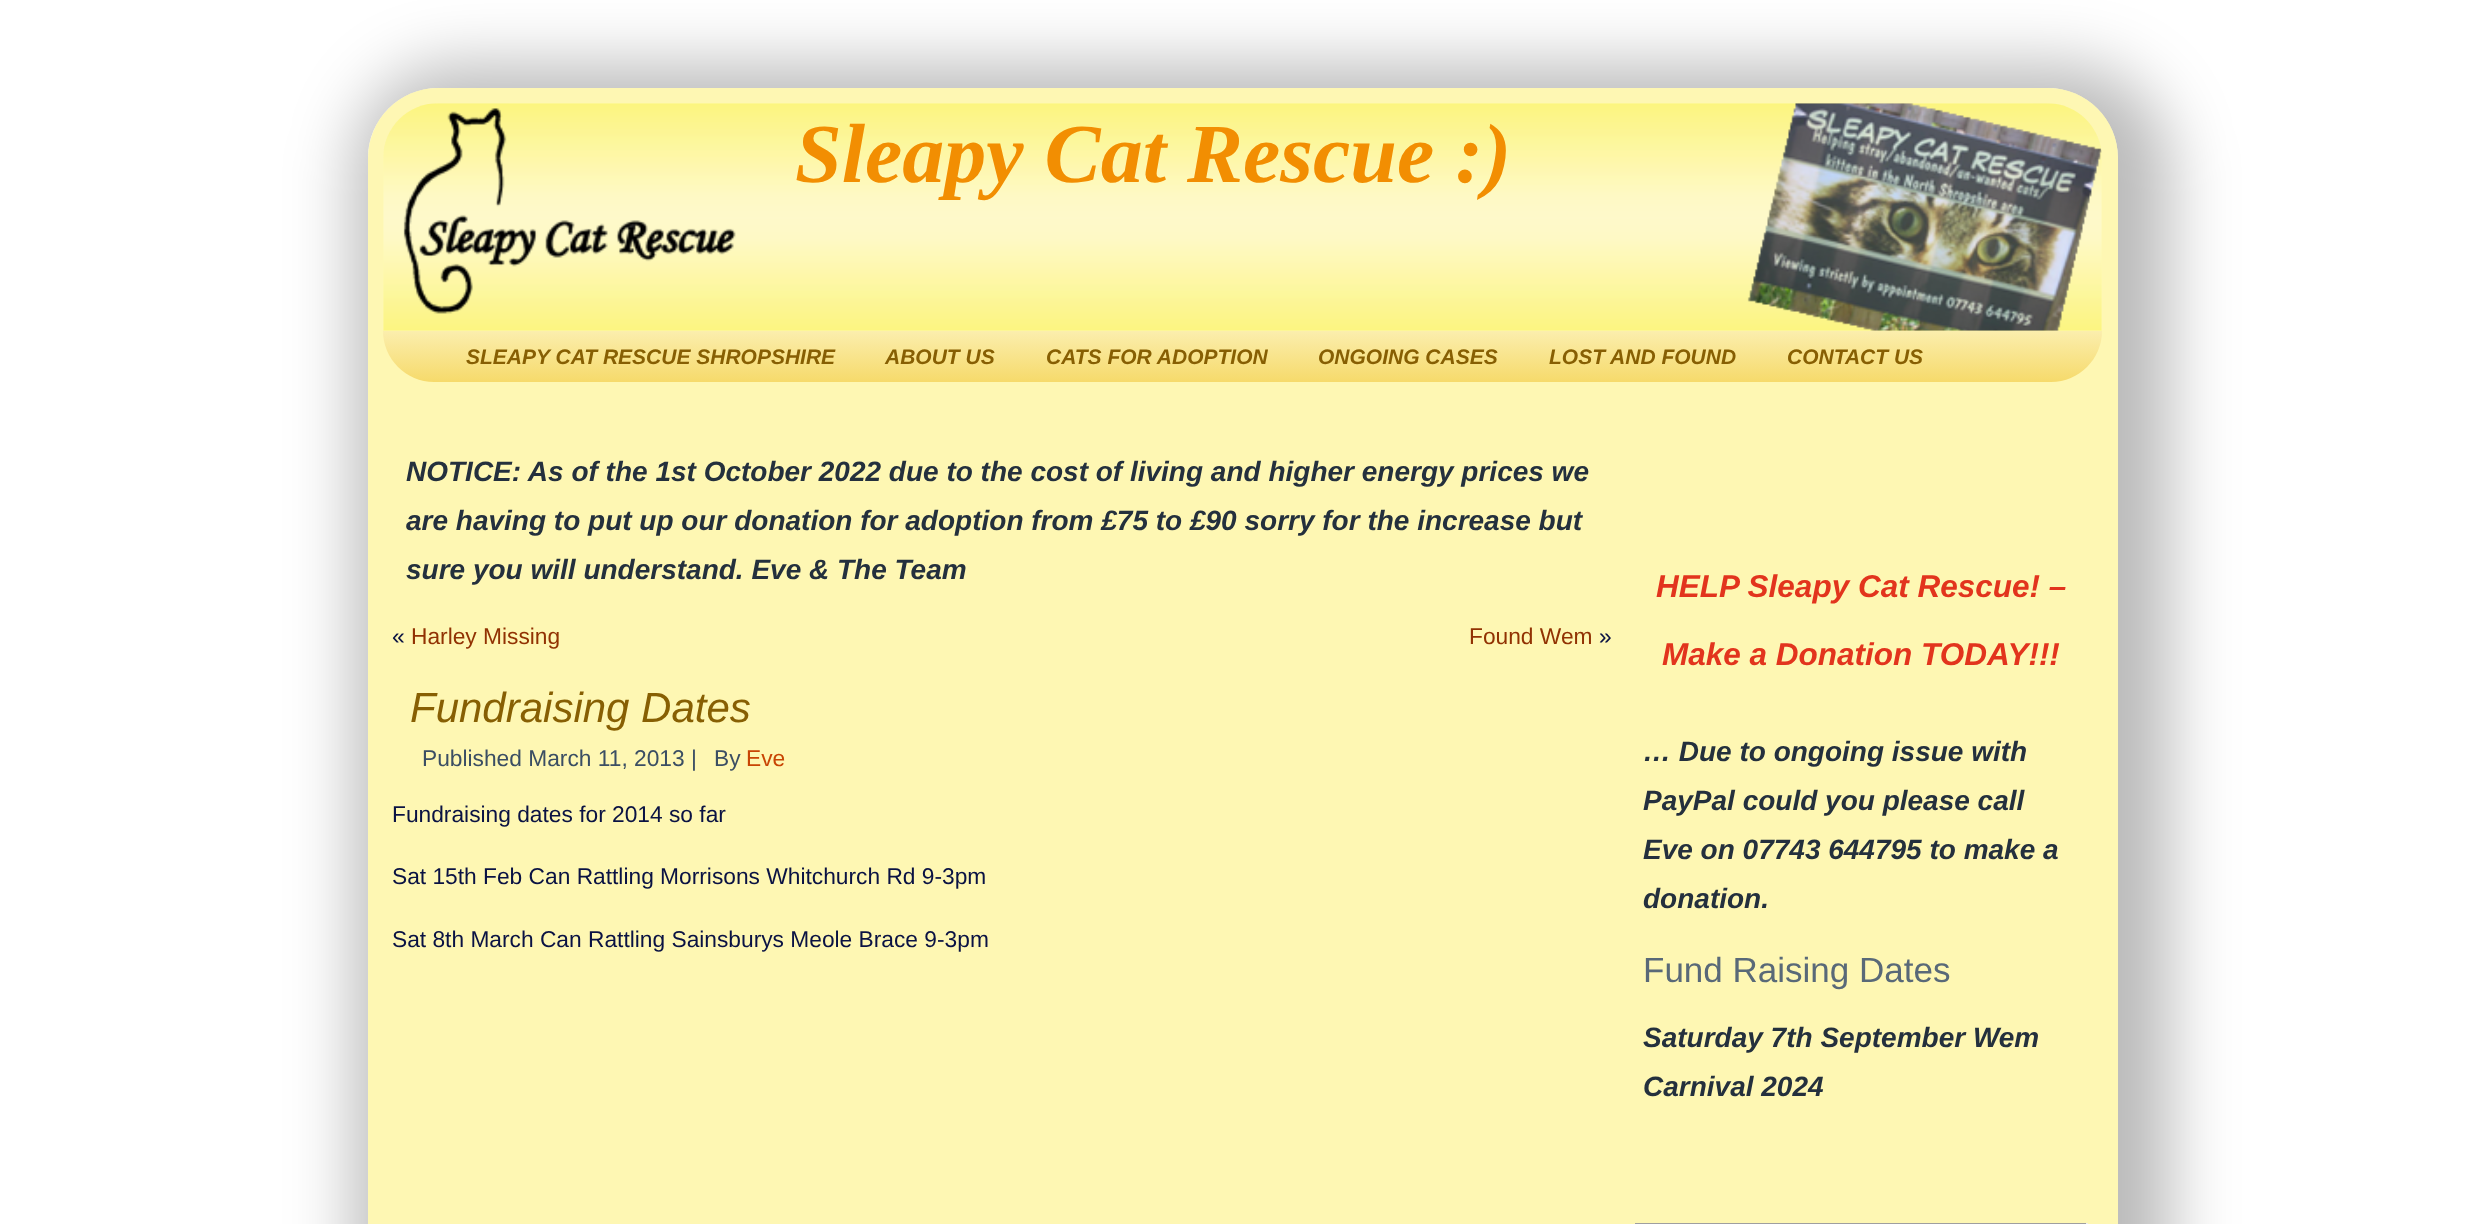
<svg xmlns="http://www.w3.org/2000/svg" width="2484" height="1224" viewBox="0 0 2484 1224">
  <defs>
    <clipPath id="clip1"><path d="M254 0H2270V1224H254ZM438 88H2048C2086.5 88 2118 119.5 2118 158V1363C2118 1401.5 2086.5 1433 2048 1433H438C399.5 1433 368 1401.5 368 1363V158C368 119.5 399.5 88 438 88Z" clip-rule="evenodd"/></clipPath>
    <filter id="blur1" x="-50%" y="-200%" width="200%" height="500%"><feGaussianBlur stdDeviation="33"/></filter>
    <linearGradient id="g1" gradientUnits="userSpaceOnUse" x1="1243" y1="331" x2="1243" y2="382"><stop offset="0" stop-color="#fbeead"/><stop offset="1" stop-color="#f6da6b"/></linearGradient>
  </defs>
  <rect width="100%" height="100%" fill="#ffffff"/>
  <g clip-path="url(#clip1)">
    <rect x="354" y="65" width="1816" height="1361" rx="103" fill="#000000" fill-opacity="0.27" filter="url(#blur1)"/>
  </g>
  <rect x="368" y="88" width="1750" height="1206" rx="70" fill="#fdf491" fill-opacity="0.69"/>
  <image x="383" y="103" width="1719" height="228" href="img1.png"/>
  <text x="795" y="182" font-family="Liberation Serif" font-size="84" font-weight="bold" font-style="italic" fill="#f28e02">Sleapy Cat Rescue :)</text>
  <path d="M383 331H2102C2102 359 2079 382 2051 382H434C406 382 383 359 383 331Z" fill="url(#g1)"/>
  <text x="466" y="364" font-family="Liberation Sans" font-size="21" font-weight="bold" font-style="italic" fill="#875f03">SLEAPY CAT RESCUE SHROPSHIRE</text>
  <text x="885" y="364" font-family="Liberation Sans" font-size="21" font-weight="bold" font-style="italic" fill="#875f03">ABOUT US</text>
  <text x="1046" y="364" font-family="Liberation Sans" font-size="21" font-weight="bold" font-style="italic" fill="#875f03">CATS FOR ADOPTION</text>
  <text x="1318" y="364" font-family="Liberation Sans" font-size="21" font-weight="bold" font-style="italic" fill="#875f03">ONGOING CASES</text>
  <text x="1549" y="364" font-family="Liberation Sans" font-size="21" font-weight="bold" font-style="italic" fill="#875f03">LOST AND FOUND</text>
  <text x="1787" y="364" font-family="Liberation Sans" font-size="21" font-weight="bold" font-style="italic" fill="#875f03">CONTACT US</text>
  <text x="406" y="481" font-family="Liberation Sans" font-size="28" font-weight="bold" font-style="italic" fill="#24303d">NOTICE: As of the 1st October 2022 due to the cost of living and higher energy prices we</text>
  <text x="406" y="530" font-family="Liberation Sans" font-size="28" font-weight="bold" font-style="italic" fill="#24303d">are having to put up our donation for adoption from £75 to £90 sorry for the increase but</text>
  <text x="406" y="579" font-family="Liberation Sans" font-size="28" font-weight="bold" font-style="italic" fill="#24303d">sure you will understand. Eve &amp; The Team</text>
  <text x="392" y="644" font-family="Liberation Sans" font-size="22.75" fill="#0a1243">«</text>
  <text x="411" y="644" font-family="Liberation Sans" font-size="22.75" fill="#913203">Harley Missing</text>
  <text x="1469" y="644" font-family="Liberation Sans" font-size="22.75" fill="#913203">Found Wem</text>
  <text x="1599" y="644" font-family="Liberation Sans" font-size="22.75" fill="#0a1243">»</text>
  <text x="410" y="722" font-family="Liberation Sans" font-size="42" font-style="italic" fill="#875f03">Fundraising Dates</text>
  <text x="422" y="766" font-family="Liberation Sans" font-size="22.75" fill="#3b4e63">Published March 11, 2013 |</text>
  <text x="714" y="766" font-family="Liberation Sans" font-size="22.75" fill="#3b4e63">By</text>
  <text x="746" y="766" font-family="Liberation Sans" font-size="22.75" fill="#c84504">Eve</text>
  <text x="392" y="822" font-family="Liberation Sans" font-size="22.75" fill="#0a1243">Fundraising dates for 2014 so far</text>
  <text x="392" y="884" font-family="Liberation Sans" font-size="22.75" fill="#0a1243">Sat 15th Feb Can Rattling Morrisons Whitchurch Rd 9-3pm</text>
  <text x="392" y="947" font-family="Liberation Sans" font-size="22.75" fill="#0a1243">Sat 8th March Can Rattling Sainsburys Meole Brace 9-3pm</text>
  <text x="1656" y="597" font-family="Liberation Sans" font-size="31.5" font-weight="bold" font-style="italic" fill="#e2341d">HELP Sleapy Cat Rescue! –</text>
  <text x="1662" y="665" font-family="Liberation Sans" font-size="31.5" font-weight="bold" font-style="italic" fill="#e2341d">Make a Donation TODAY!!!</text>
  <text x="1643" y="761" font-family="Liberation Sans" font-size="28" font-weight="bold" font-style="italic" fill="#24303d">… Due to ongoing issue with</text>
  <text x="1643" y="810" font-family="Liberation Sans" font-size="28" font-weight="bold" font-style="italic" fill="#24303d">PayPal could you please call</text>
  <text x="1643" y="859" font-family="Liberation Sans" font-size="28" font-weight="bold" font-style="italic" fill="#24303d">Eve on 07743 644795 to make a</text>
  <text x="1643" y="908" font-family="Liberation Sans" font-size="28" font-weight="bold" font-style="italic" fill="#24303d">donation.</text>
  <text x="1643" y="982" font-family="Liberation Sans" font-size="35" fill="#596978">Fund Raising Dates</text>
  <text x="1643" y="1047" font-family="Liberation Sans" font-size="28" font-weight="bold" font-style="italic" fill="#24303d">Saturday 7th September Wem</text>
  <text x="1643" y="1096" font-family="Liberation Sans" font-size="28" font-weight="bold" font-style="italic" fill="#24303d">Carnival 2024</text>
  <rect x="1635" y="1223" width="453" height="1" fill="#9f9f9f"/>
  <rect x="2086" y="1223" width="2" height="1" fill="#eeeeee"/>
</svg>
